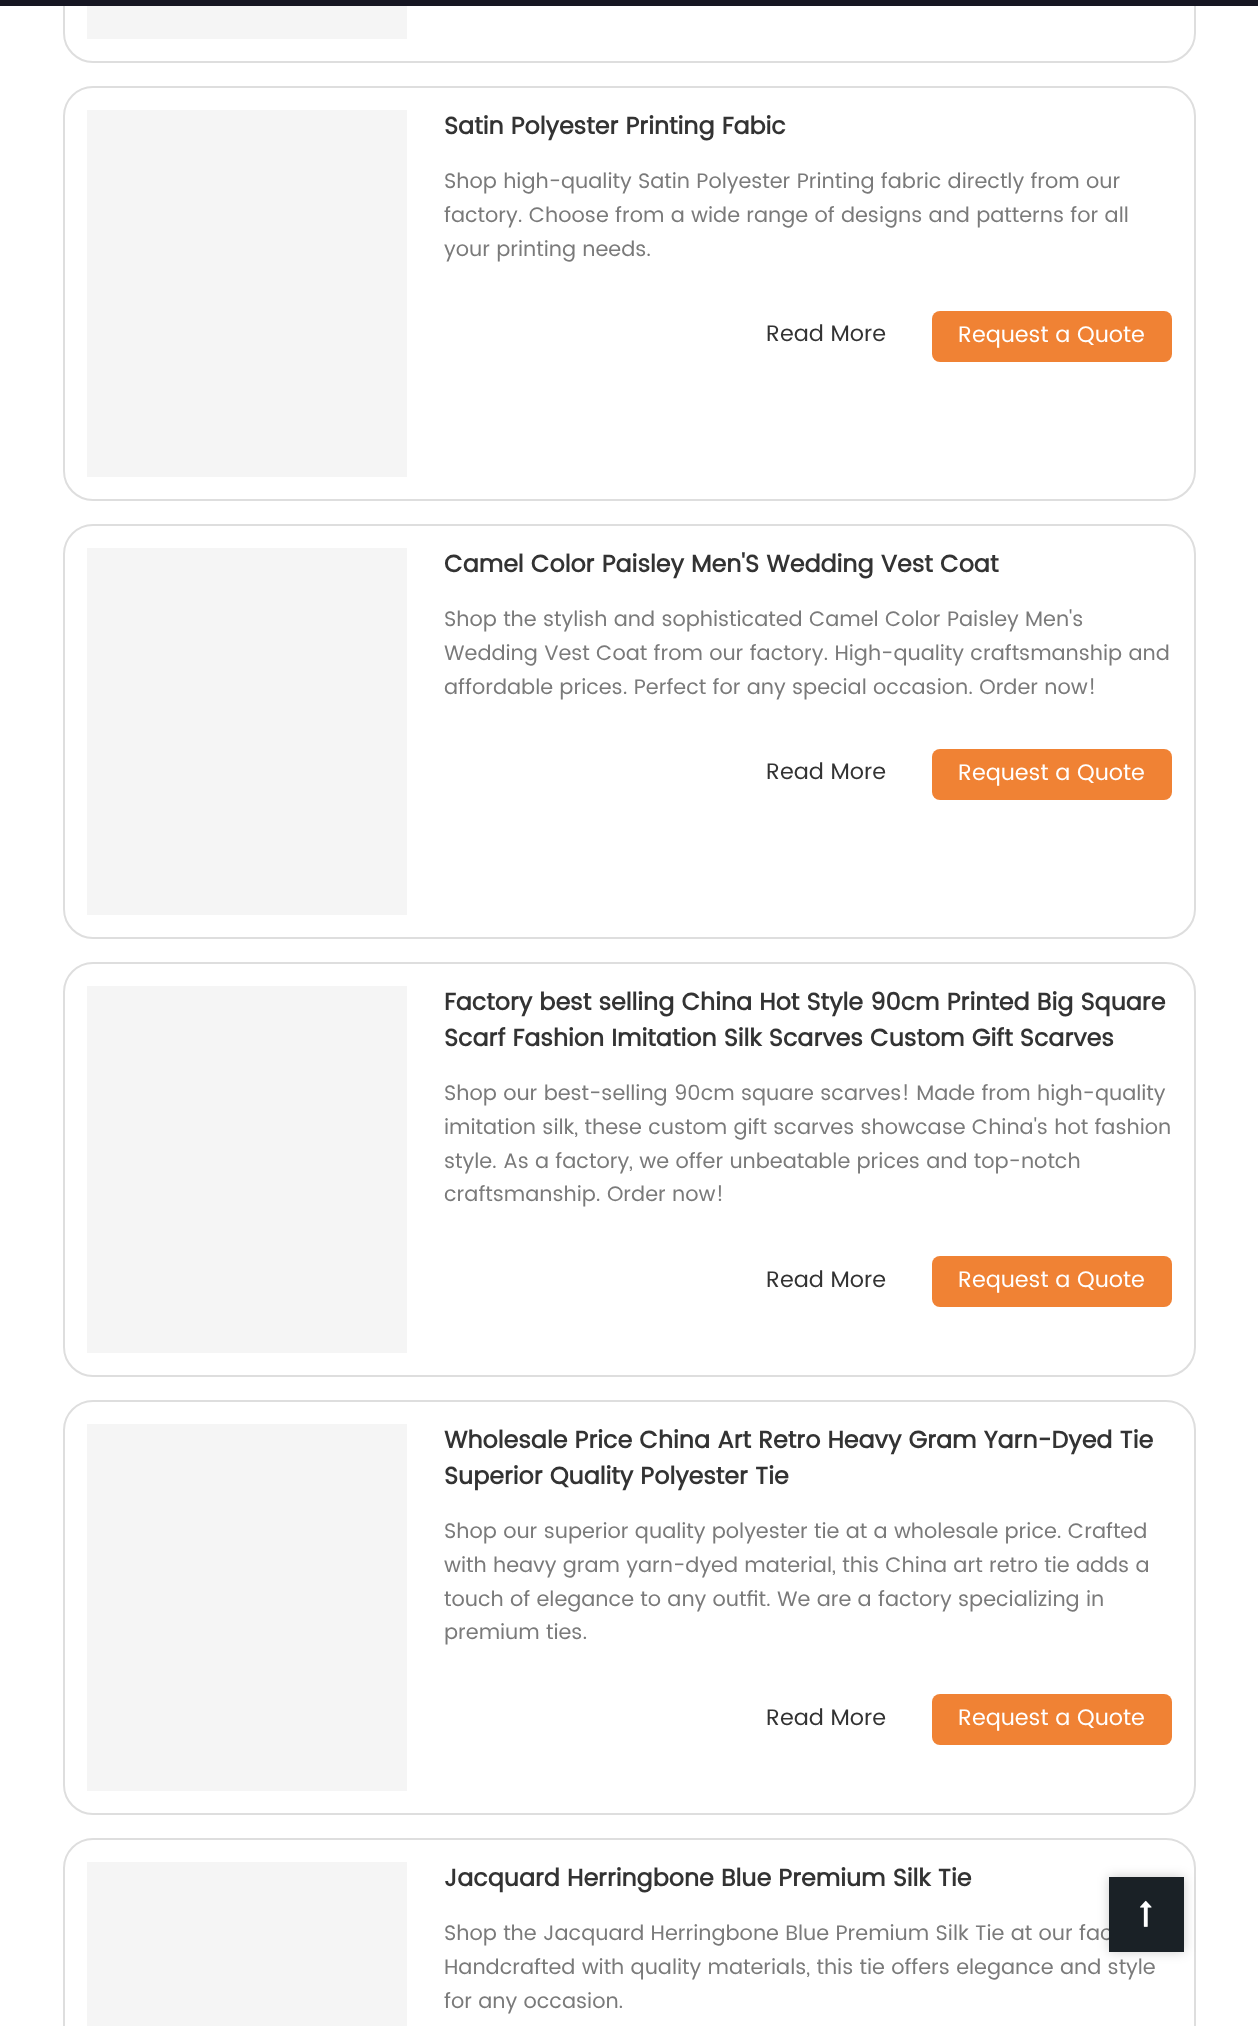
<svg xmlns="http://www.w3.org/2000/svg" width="1258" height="2026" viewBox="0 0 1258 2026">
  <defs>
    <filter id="blur1" x="-50%" y="-200%" width="200%" height="500%"><feGaussianBlur stdDeviation="6"/></filter>
  </defs>
  <rect width="100%" height="100%" fill="#ffffff"/>
  <rect x="64" y="-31" width="1131" height="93" rx="29" fill="none" stroke="#dedede" stroke-width="2"/>
  <rect x="0" y="0" width="1258" height="6" fill="#161622"/>
  <rect x="87" y="6" width="320" height="33" fill="#f5f5f5"/>
  <rect x="64" y="87" width="1131" height="413" rx="29" fill="none" stroke="#dedede" stroke-width="2"/>
  <rect x="87" y="110" width="320" height="367" fill="#f5f5f5"/>
  <text x="444" y="134" font-family="Poppins" font-size="24" font-weight="bold" fill="#333333">Satin Polyester Printing Fabic</text>
  <text x="444" y="188" font-family="Poppins" font-size="21" fill="#7a7a7a">Shop high-quality Satin Polyester Printing fabric directly from our</text>
  <text x="444" y="222" font-family="Poppins" font-size="21" fill="#7a7a7a">factory. Choose from a wide range of designs and patterns for all</text>
  <text x="444" y="256" font-family="Poppins" font-size="21" fill="#7a7a7a">your printing needs.</text>
  <text x="766" y="341" font-family="Poppins" font-size="22.5" fill="#333333">Read More</text>
  <rect x="932" y="311" width="240" height="51" rx="8" fill="#f08234"/>
  <text x="958" y="342" font-family="Poppins" font-size="22.5" fill="#ffffff">Request a Quote</text>
  <rect x="64" y="525" width="1131" height="413" rx="29" fill="none" stroke="#dedede" stroke-width="2"/>
  <rect x="87" y="548" width="320" height="367" fill="#f5f5f5"/>
  <text x="444" y="572" font-family="Poppins" font-size="24" font-weight="bold" fill="#333333">Camel Color Paisley Men'S Wedding Vest Coat</text>
  <text x="444" y="626" font-family="Poppins" font-size="21" fill="#7a7a7a">Shop the stylish and sophisticated Camel Color Paisley Men's</text>
  <text x="444" y="660" font-family="Poppins" font-size="21" fill="#7a7a7a">Wedding Vest Coat from our factory. High-quality craftsmanship and</text>
  <text x="444" y="694" font-family="Poppins" font-size="21" fill="#7a7a7a">affordable prices. Perfect for any special occasion. Order now!</text>
  <text x="766" y="779" font-family="Poppins" font-size="22.5" fill="#333333">Read More</text>
  <rect x="932" y="749" width="240" height="51" rx="8" fill="#f08234"/>
  <text x="958" y="780" font-family="Poppins" font-size="22.5" fill="#ffffff">Request a Quote</text>
  <rect x="64" y="963" width="1131" height="413" rx="29" fill="none" stroke="#dedede" stroke-width="2"/>
  <rect x="87" y="986" width="320" height="367" fill="#f5f5f5"/>
  <text x="444" y="1010" font-family="Poppins" font-size="24" font-weight="bold" fill="#333333">Factory best selling China Hot Style 90cm Printed Big Square</text>
  <text x="444" y="1046" font-family="Poppins" font-size="24" font-weight="bold" fill="#333333">Scarf Fashion Imitation Silk Scarves Custom Gift Scarves</text>
  <text x="444" y="1100" font-family="Poppins" font-size="21" fill="#7a7a7a">Shop our best-selling 90cm square scarves! Made from high-quality</text>
  <text x="444" y="1134" font-family="Poppins" font-size="21" fill="#7a7a7a">imitation silk, these custom gift scarves showcase China's hot fashion</text>
  <text x="444" y="1168" font-family="Poppins" font-size="21" fill="#7a7a7a">style. As a factory, we offer unbeatable prices and top-notch</text>
  <text x="444" y="1201" font-family="Poppins" font-size="21" fill="#7a7a7a">craftsmanship. Order now!</text>
  <text x="766" y="1287" font-family="Poppins" font-size="22.5" fill="#333333">Read More</text>
  <rect x="932" y="1256" width="240" height="51" rx="8" fill="#f08234"/>
  <text x="958" y="1287" font-family="Poppins" font-size="22.5" fill="#ffffff">Request a Quote</text>
  <rect x="64" y="1401" width="1131" height="413" rx="29" fill="none" stroke="#dedede" stroke-width="2"/>
  <rect x="87" y="1424" width="320" height="367" fill="#f5f5f5"/>
  <text x="444" y="1448" font-family="Poppins" font-size="24" font-weight="bold" fill="#333333">Wholesale Price China Art Retro Heavy Gram Yarn-Dyed Tie</text>
  <text x="444" y="1484" font-family="Poppins" font-size="24" font-weight="bold" fill="#333333">Superior Quality Polyester Tie</text>
  <text x="444" y="1538" font-family="Poppins" font-size="21" fill="#7a7a7a">Shop our superior quality polyester tie at a wholesale price. Crafted</text>
  <text x="444" y="1572" font-family="Poppins" font-size="21" fill="#7a7a7a">with heavy gram yarn-dyed material, this China art retro tie adds a</text>
  <text x="444" y="1606" font-family="Poppins" font-size="21" fill="#7a7a7a">touch of elegance to any outfit. We are a factory specializing in</text>
  <text x="444" y="1639" font-family="Poppins" font-size="21" fill="#7a7a7a">premium ties.</text>
  <text x="766" y="1725" font-family="Poppins" font-size="22.5" fill="#333333">Read More</text>
  <rect x="932" y="1694" width="240" height="51" rx="8" fill="#f08234"/>
  <text x="958" y="1725" font-family="Poppins" font-size="22.5" fill="#ffffff">Request a Quote</text>
  <rect x="64" y="1839" width="1131" height="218" rx="29" fill="none" stroke="#dedede" stroke-width="2"/>
  <rect x="87" y="1862" width="320" height="164" fill="#f5f5f5"/>
  <text x="444" y="1886" font-family="Poppins" font-size="24" font-weight="bold" fill="#333333">Jacquard Herringbone Blue Premium Silk Tie</text>
  <text x="444" y="1940" font-family="Poppins" font-size="21" fill="#7a7a7a">Shop the Jacquard Herringbone Blue Premium Silk Tie at our fac</text>
  <text x="444" y="1974" font-family="Poppins" font-size="21" fill="#7a7a7a">Handcrafted with quality materials, this tie offers elegance and style</text>
  <text x="444" y="2008" font-family="Poppins" font-size="21" fill="#7a7a7a">for any occasion.</text>
  <rect x="1109" y="1877" width="75" height="75" fill="#000000" fill-opacity="0.2" filter="url(#blur1)"/>
  <rect x="1109" y="1877" width="75" height="75" fill="#1a2126"/>
  <image x="1140" y="1900" width="12" height="27" href="img1.png"/>
</svg>
